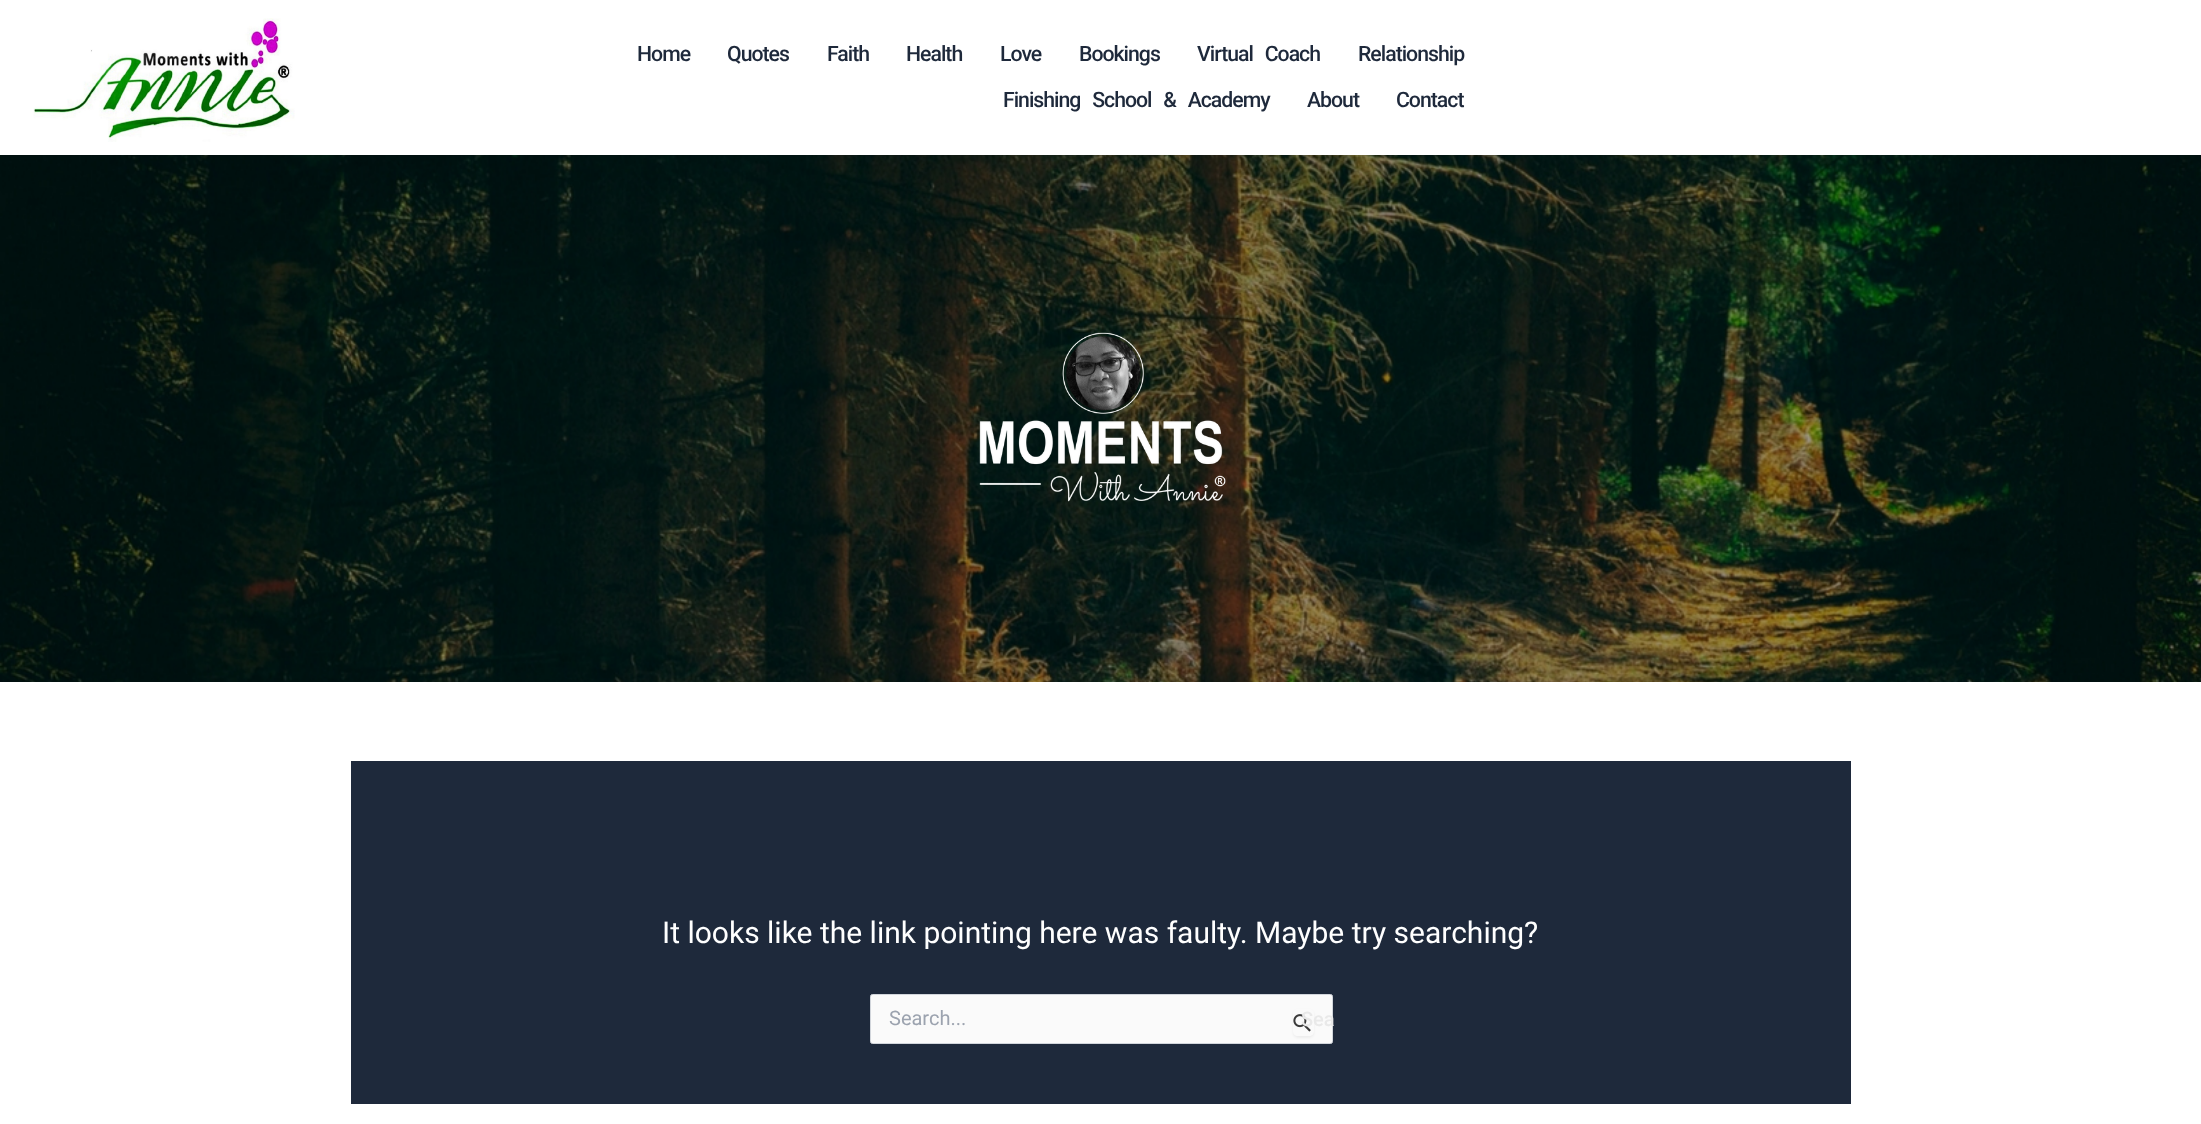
<svg xmlns="http://www.w3.org/2000/svg" width="2201" height="1124" viewBox="0 0 2201 1124">
  <defs>
    <clipPath id="clip1"><path d="M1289 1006H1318V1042H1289ZM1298 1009H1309C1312 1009 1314 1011 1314 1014V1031C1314 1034 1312 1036 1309 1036H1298C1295 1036 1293 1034 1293 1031V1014C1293 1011 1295 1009 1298 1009Z" clip-rule="evenodd"/></clipPath>
    <filter id="blur1" x="-50%" y="-200%" width="200%" height="500%"><feGaussianBlur stdDeviation="1"/></filter>
  </defs>
  <rect width="100%" height="100%" fill="#ffffff"/>
  <image x="33" y="18" width="262" height="124" href="img1.png"/>
  <text x="637" y="61" font-family="Roboto" font-size="21.25" font-weight="500" letter-spacing="-1" fill="#1e293b">Home</text>
  <text x="727" y="61" font-family="Roboto" font-size="21.25" font-weight="500" letter-spacing="-1" fill="#1e293b">Quotes</text>
  <text x="827" y="61" font-family="Roboto" font-size="21.25" font-weight="500" letter-spacing="-1" fill="#1e293b">Faith</text>
  <text x="906" y="61" font-family="Roboto" font-size="21.25" font-weight="500" letter-spacing="-1" fill="#1e293b">Health</text>
  <text x="1000" y="61" font-family="Roboto" font-size="21.25" font-weight="500" letter-spacing="-1" fill="#1e293b">Love</text>
  <text x="1079" y="61" font-family="Roboto" font-size="21.25" font-weight="500" letter-spacing="-1" fill="#1e293b">Bookings</text>
  <text x="1197" y="61" word-spacing="7.5" font-family="Roboto" font-size="21.25" font-weight="500" letter-spacing="-1" fill="#1e293b">Virtual Coach</text>
  <text x="1358" y="61" font-family="Roboto" font-size="21.25" font-weight="500" letter-spacing="-1" fill="#1e293b">Relationship</text>
  <text x="1003" y="107" word-spacing="7.5" font-family="Roboto" font-size="21.25" font-weight="500" letter-spacing="-1" fill="#1e293b">Finishing School &amp; Academy</text>
  <text x="1307" y="107" font-family="Roboto" font-size="21.25" font-weight="500" letter-spacing="-1" fill="#1e293b">About</text>
  <text x="1396" y="107" font-family="Roboto" font-size="21.25" font-weight="500" letter-spacing="-1" fill="#1e293b">Contact</text>
  <image x="0" y="155" width="2201" height="527" href="img2.png"/>
  <image x="979" y="332" width="247" height="170" href="img3.png"/>
  <rect x="351" y="761" width="1500" height="343" fill="#1e293b"/>
  <text x="662" y="943" font-family="Roboto" font-size="30" fill="#ffffff">It looks like the link pointing here was faulty. Maybe try searching?</text>
  <rect x="870.5" y="994.5" width="462" height="49" rx="2" fill="#fafafa" stroke="#d1d5db"/>
  <text x="889" y="1025" font-family="Roboto" font-size="20" fill="#9ca3af">Search...</text>
  <g clip-path="url(#clip1)">
    <rect x="1293" y="1010" width="21" height="28" rx="5" fill="#000000" fill-opacity="0.05" filter="url(#blur1)"/>
  </g>
  <image x="1293" y="1014" width="18" height="18" href="img4.png"/>
  <text x="1301" y="1026" font-family="Roboto" font-size="20" font-weight="500" fill="#e9e9e9">Sea</text>
</svg>
